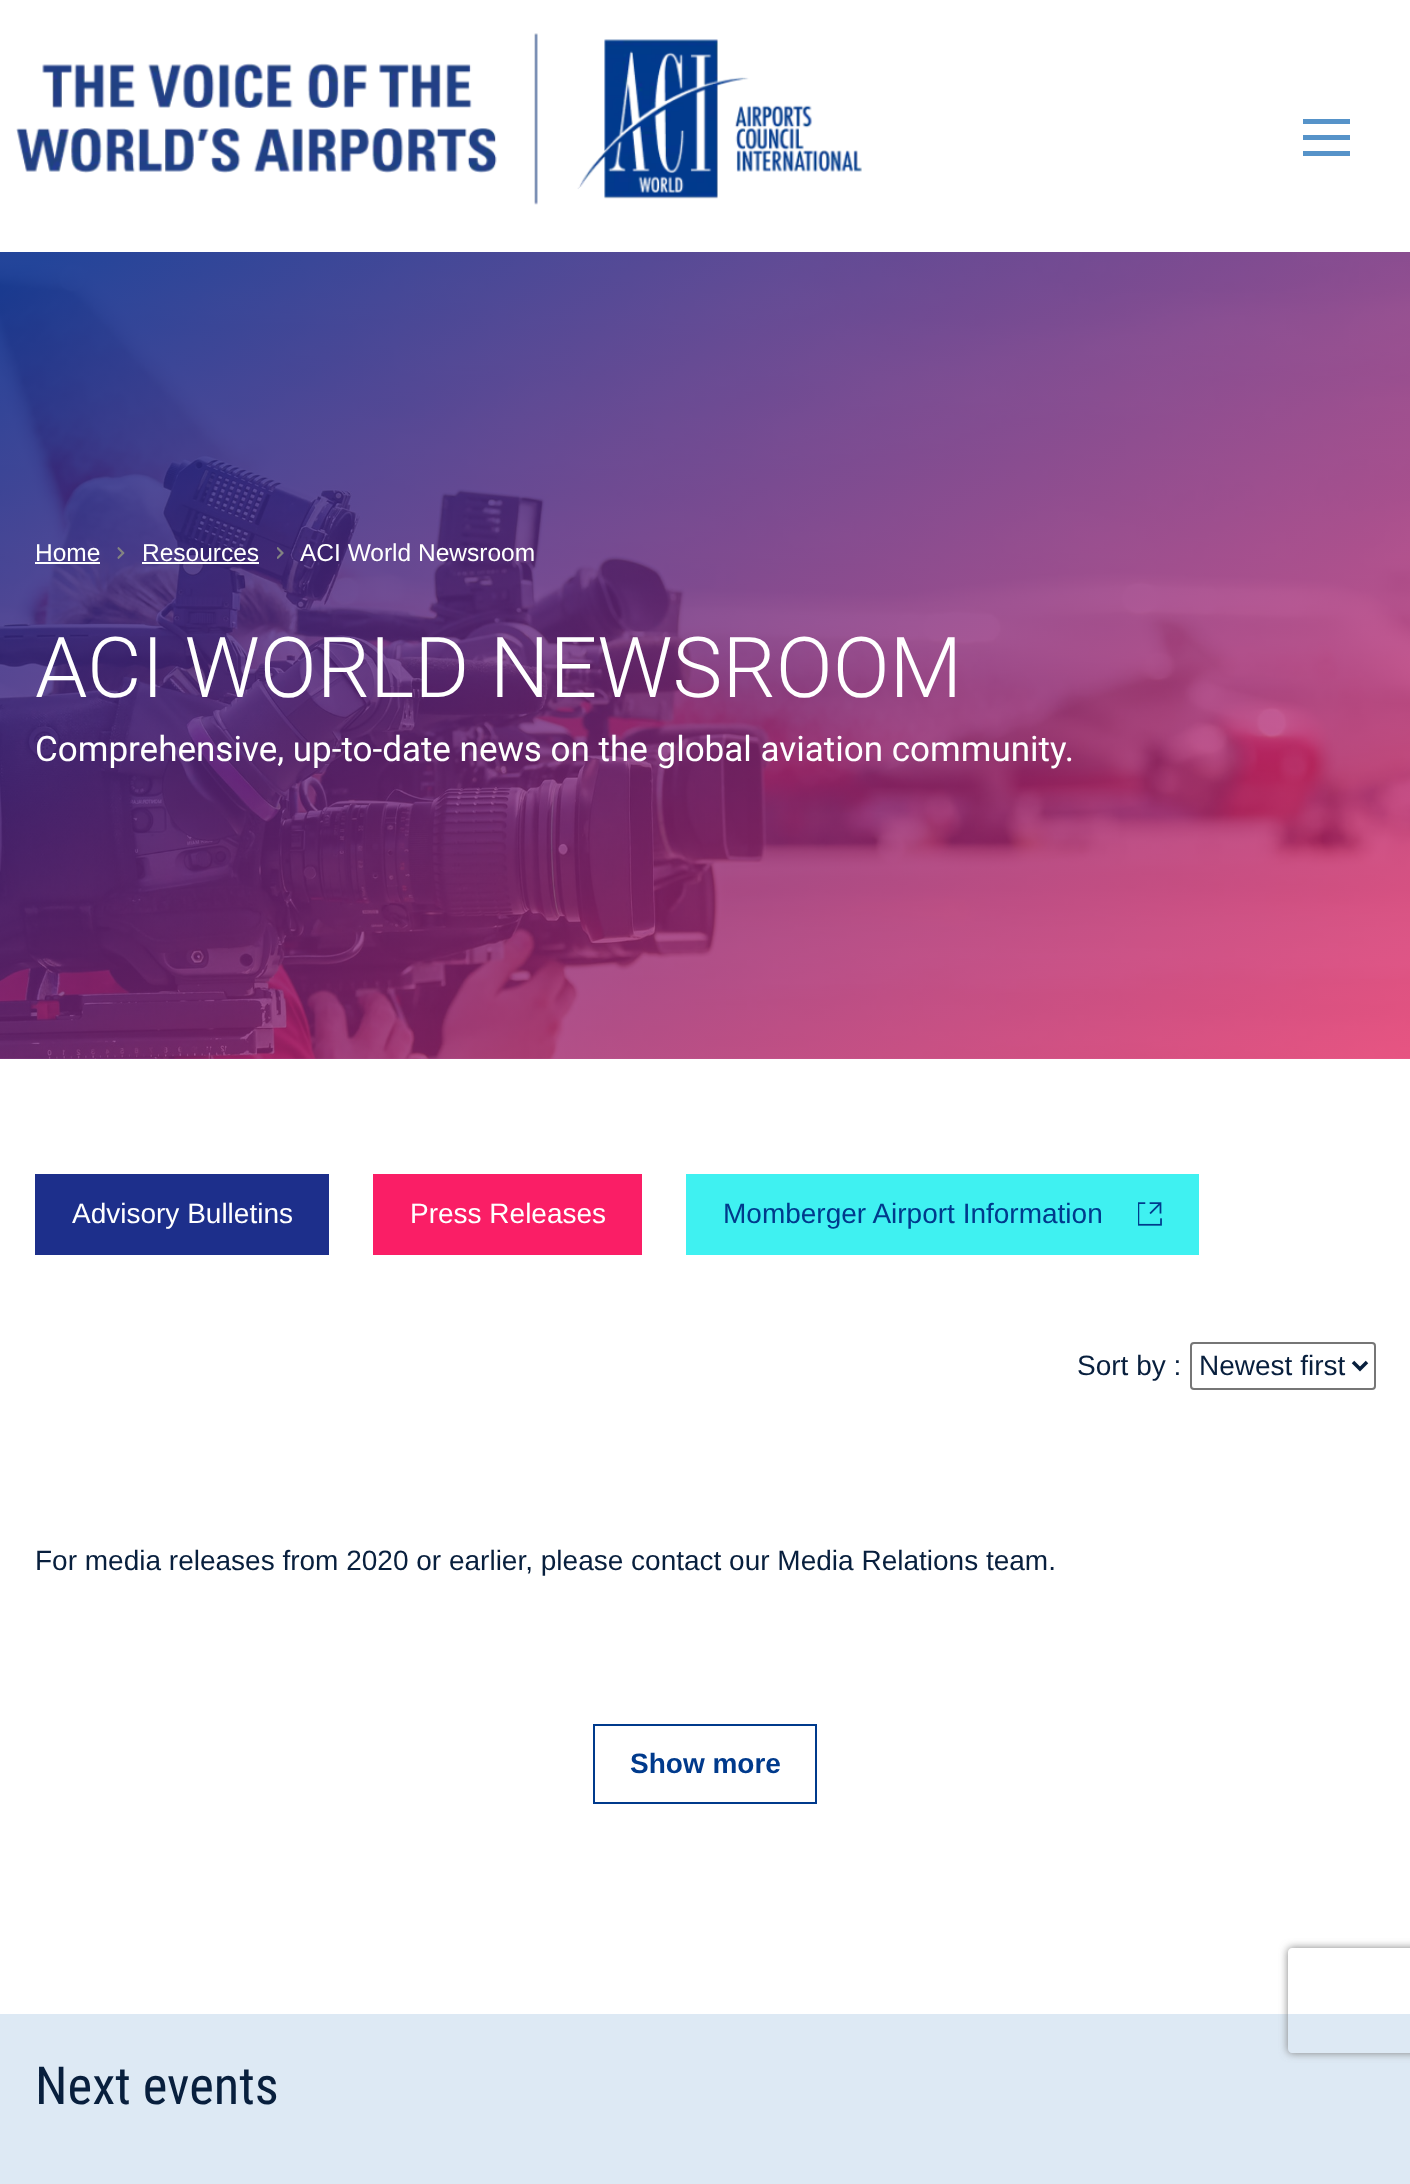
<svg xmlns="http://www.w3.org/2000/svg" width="1410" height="2184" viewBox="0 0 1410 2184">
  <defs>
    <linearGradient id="g1" gradientUnits="userSpaceOnUse" x1="354" y1="47" x2="1056" y2="1263"><stop offset="0.02" stop-color="#00288c" stop-opacity="0.85"/><stop offset="1" stop-color="#ec1e63" stop-opacity="0.7"/></linearGradient>
    <clipPath id="clip1"><path d="M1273 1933H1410V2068H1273ZM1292 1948H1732C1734 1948 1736 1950 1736 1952V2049C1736 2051 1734 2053 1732 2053H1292C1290 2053 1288 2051 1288 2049V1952C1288 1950 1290 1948 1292 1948Z" clip-rule="evenodd"/></clipPath>
    <filter id="blur1" x="-50%" y="-200%" width="200%" height="500%"><feGaussianBlur stdDeviation="4.5"/></filter>
  </defs>
  <rect width="100%" height="100%" fill="#ffffff"/>
  <image x="16" y="33" width="846" height="172" href="img1.png"/>
  <rect x="1303" y="119" width="47" height="5" fill="#5693c9"/>
  <rect x="1303" y="135" width="47" height="5" fill="#5693c9"/>
  <rect x="1303" y="151" width="47" height="5" fill="#5693c9"/>
  <image x="0" y="252" width="1410" height="807" href="img2.png"/>
  <rect x="0" y="252" width="1410" height="807" fill="url(#g1)"/>
  <text x="35" y="561" font-family="Liberation Sans" font-size="24.5" fill="#ffffff">Home</text>
  <rect x="35" y="562" width="65" height="2" fill="#ffffff"/>
  <image x="117" y="547" width="8" height="12" href="img3.png"/>
  <text x="142" y="561" font-family="Liberation Sans" font-size="24.5" fill="#ffffff">Resources</text>
  <rect x="142" y="562" width="117" height="2" fill="#ffffff"/>
  <image x="277" y="547" width="7" height="12" href="img4.png"/>
  <text x="300" y="561" font-family="Liberation Sans" font-size="24.5" fill="#ffffff">ACI World Newsroom</text>
  <text x="35" y="697" font-family="Roboto" font-size="84" font-weight="300" fill="#ffffff">ACI WORLD NEWSROOM</text>
  <text x="35" y="761" font-family="Roboto" font-size="35" fill="#ffffff">Comprehensive, up-to-date news on the global aviation community.</text>
  <rect x="35" y="1174" width="294" height="81" fill="#1d2f8b"/>
  <text x="72" y="1223" font-family="Liberation Sans" font-size="28" fill="#ffffff">Advisory Bulletins</text>
  <rect x="373" y="1174" width="269" height="81" fill="#fa1e66"/>
  <text x="410" y="1223" font-family="Liberation Sans" font-size="28" fill="#ffffff">Press Releases</text>
  <rect x="686" y="1174" width="513" height="81" fill="#3ff1f1"/>
  <text x="723" y="1223" font-family="Liberation Sans" font-size="28" fill="#003a8c">Momberger Airport Information</text>
  <image x="1138" y="1202" width="24" height="24" href="img5.png"/>
  <text x="1077" y="1375" font-family="Liberation Sans" font-size="28" fill="#081f3d">Sort by :</text>
  <rect x="1191" y="1343" width="184" height="46" rx="3" fill="none" stroke="#767676" stroke-width="2"/>
  <path d="M1353 1362L1360 1369L1367 1362" fill="none" stroke="#081f3d" stroke-width="3.5"/>
  <text x="1199" y="1375" font-family="Liberation Sans" font-size="28" fill="#081f3d">Newest first</text>
  <text x="35" y="1570" font-family="Liberation Sans" font-size="28" fill="#081f3d">For media releases from 2020 or earlier, please contact our Media Relations team.</text>
  <rect x="594" y="1725" width="222" height="78" fill="none" stroke="#003a8c" stroke-width="2"/>
  <text x="630" y="1773" font-family="Liberation Sans" font-size="28" font-weight="bold" fill="#003a8c">Show more</text>
  <rect x="0" y="2014" width="1410" height="170" fill="#dde9f4"/>
  <text x="35" y="2104" font-family="Roboto Condensed" font-size="52.5" fill="#081f3d">Next events</text>
  <g clip-path="url(#clip1)">
    <rect x="1288" y="1948" width="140" height="105" rx="4" fill="#808080" filter="url(#blur1)"/>
  </g>
</svg>
